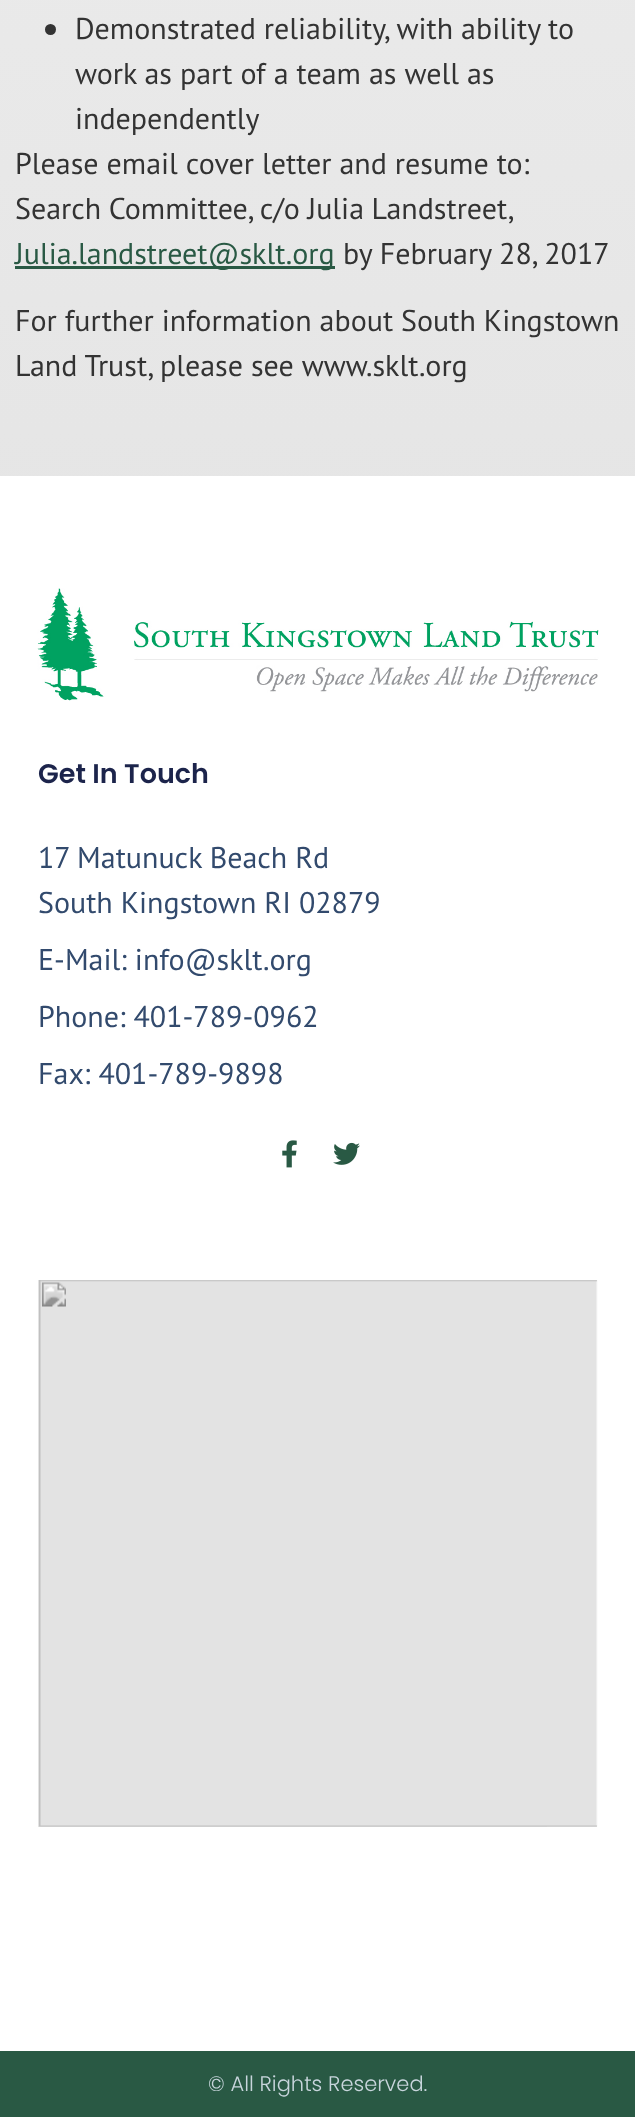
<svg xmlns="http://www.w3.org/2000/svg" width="635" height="2117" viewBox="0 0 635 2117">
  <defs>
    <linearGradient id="g1" gradientUnits="userSpaceOnUse" x1="318" y1="-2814" x2="318" y2="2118"><stop offset="0" stop-color="#ffffff"/><stop offset="1" stop-color="#d9d9d9"/></linearGradient>
  </defs>
  <rect width="100%" height="100%" fill="#ffffff"/>
  <rect x="0" y="0" width="635" height="476" fill="url(#g1)"/>
  <circle cx="50.5" cy="29.5" r="5.5" fill="#333333"/>
  <text x="75" y="39" font-family="PT Sans" font-size="30" fill="#333333">Demonstrated reliability, with ability to</text>
  <text x="75" y="84" font-family="PT Sans" font-size="30" fill="#333333">work as part of a team as well as</text>
  <text x="75" y="129" font-family="PT Sans" font-size="30" fill="#333333">independently</text>
  <text x="15" y="174" font-family="PT Sans" font-size="30" fill="#333333">Please email cover letter and resume to:</text>
  <text x="15" y="219" word-spacing="-0.5" font-family="PT Sans" font-size="30" fill="#333333">Search Committee, c/o Julia Landstreet,</text>
  <rect x="15" y="266" width="320" height="3" fill="#295944"/>
  <text x="15" y="264" font-family="PT Sans" font-size="30" fill="#295944">Julia.landstreet@sklt.org</text>
  <text x="343" y="264" font-family="PT Sans" font-size="30" fill="#333333">by February 28, 2017</text>
  <text x="15" y="331" font-family="PT Sans" font-size="30" fill="#333333">For further information about South Kingstown</text>
  <text x="15" y="376" font-family="PT Sans" font-size="30" fill="#333333">Land Trust, please see www.sklt.org</text>
  <image x="37" y="588" width="562" height="113" href="img1.png"/>
  <text x="38" y="783" font-family="Poppins" font-size="27" font-weight="600" fill="#1c244b">Get In Touch</text>
  <text x="38" y="868" font-family="PT Sans" font-size="30" fill="#324a6d">17 Matunuck Beach Rd</text>
  <text x="38" y="913" font-family="PT Sans" font-size="30" fill="#324a6d">South Kingstown RI 02879</text>
  <text x="38" y="970" font-family="PT Sans" font-size="30" fill="#324a6d">E-Mail: info@sklt.org</text>
  <text x="38" y="1027" font-family="PT Sans" font-size="30" fill="#324a6d">Phone: 401-789-0962</text>
  <text x="38" y="1084" font-family="PT Sans" font-size="30" fill="#324a6d">Fax: 401-789-9898</text>
  <image x="282" y="1140" width="15" height="28" href="img2.png"/>
  <image x="333" y="1142" width="27" height="23" href="img3.png"/>
  <image x="38" y="1280" width="560" height="547" href="img4.png"/>
  <rect x="0" y="2051" width="635" height="66" fill="#295944"/>
  <text x="208" y="2091" font-family="Poppins" font-size="21" font-weight="300" fill="#c8d5dc">© All Rights Reserved.</text>
</svg>
